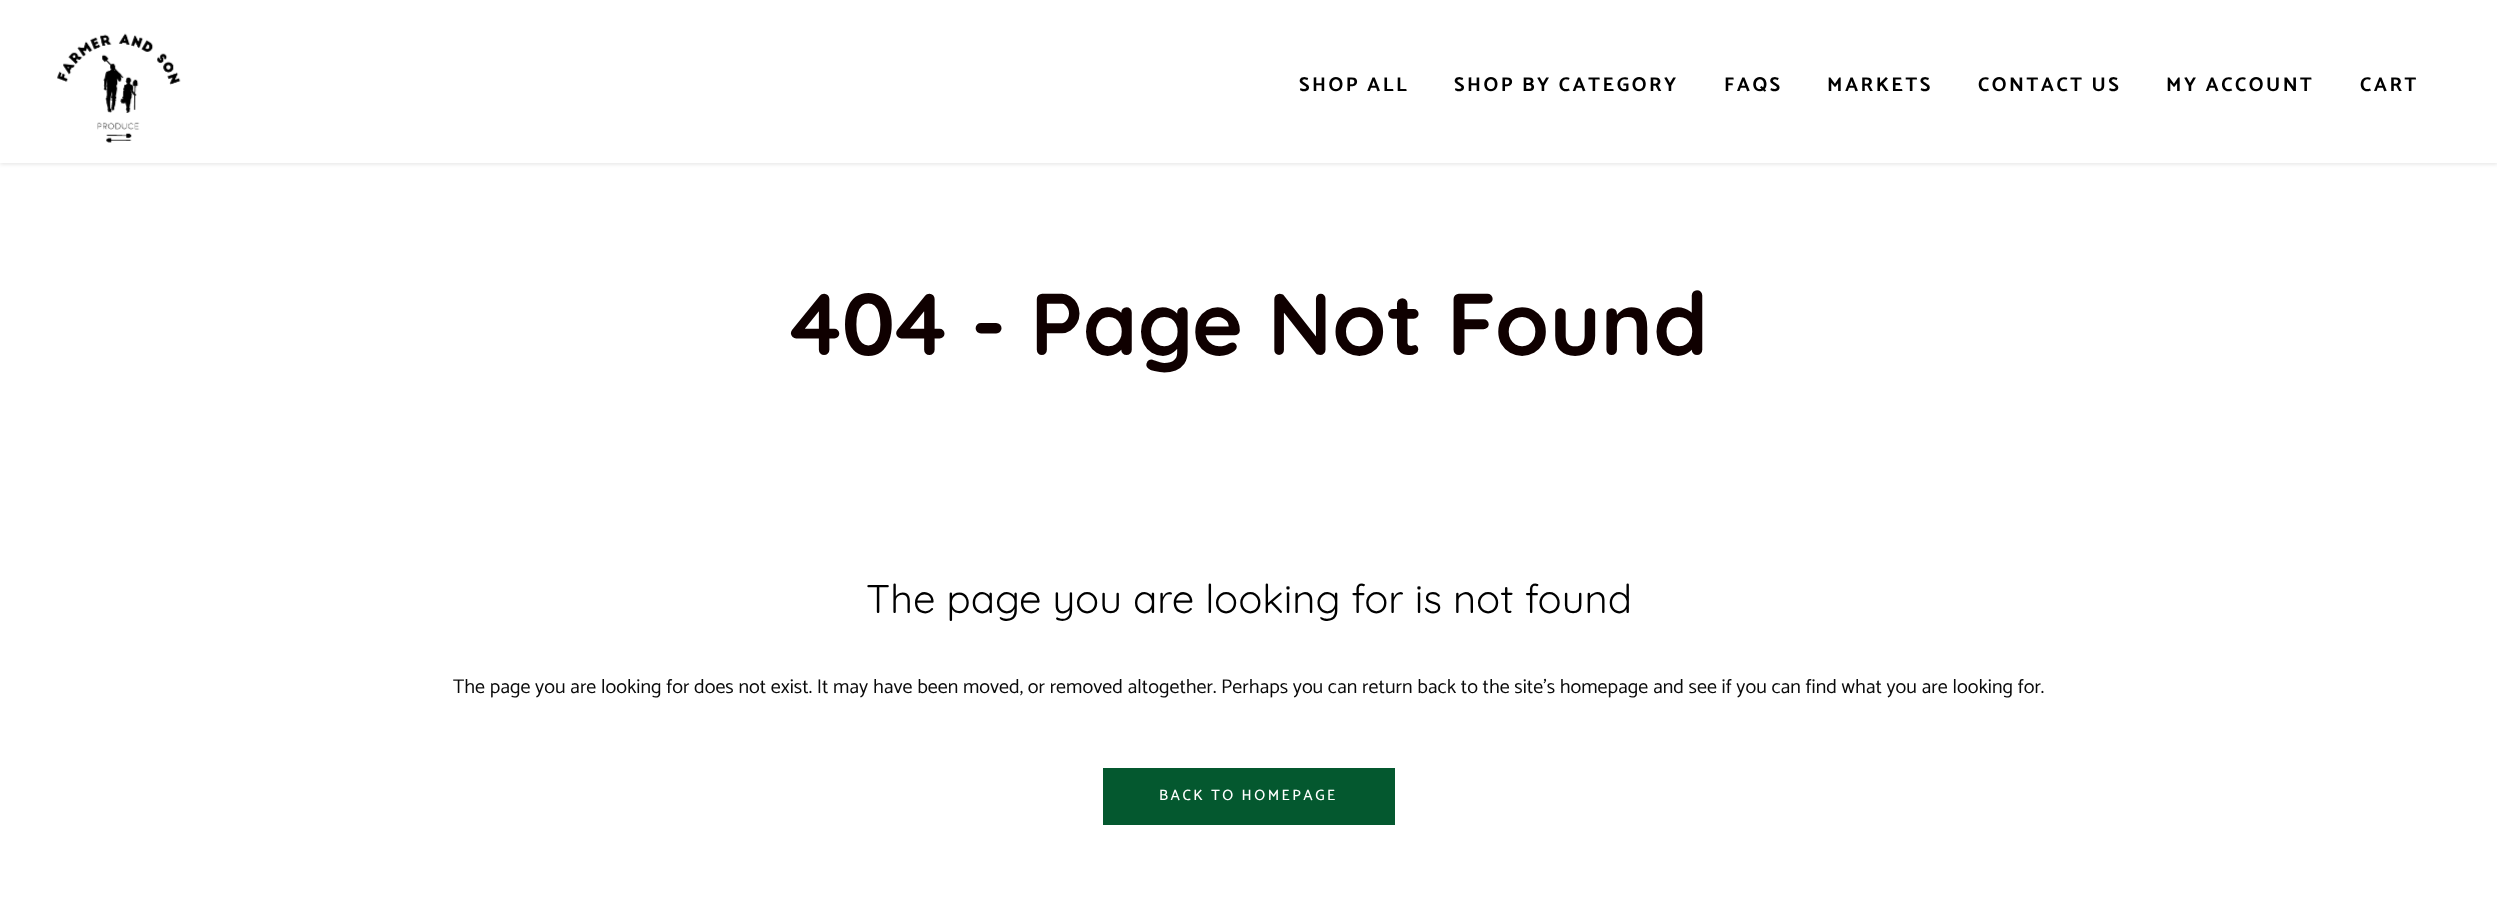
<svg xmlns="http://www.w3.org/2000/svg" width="2497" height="911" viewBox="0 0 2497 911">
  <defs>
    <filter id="blur1" x="-50%" y="-200%" width="200%" height="500%"><feGaussianBlur stdDeviation="2"/></filter>
  </defs>
  <rect width="100%" height="100%" fill="#ffffff"/>
  <rect x="0" y="1" width="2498" height="163" fill="#000000" fill-opacity="0.11" filter="url(#blur1)"/>
  <rect x="0" y="0" width="2497" height="163" fill="#ffffff"/>
  <image x="57" y="33" width="124" height="110" href="img1.png"/>
  <text x="1299" y="91" font-family="Catamaran" font-size="20" font-weight="bold" letter-spacing="2.5" fill="#000000">SHOP ALL</text>
  <text x="1454" y="91" font-family="Catamaran" font-size="20" font-weight="bold" letter-spacing="2.5" fill="#000000">SHOP BY CATEGORY</text>
  <text x="1724" y="91" font-family="Catamaran" font-size="20" font-weight="bold" letter-spacing="2.5" fill="#000000">FAQS</text>
  <text x="1827" y="91" font-family="Catamaran" font-size="20" font-weight="bold" letter-spacing="2.5" fill="#000000">MARKETS</text>
  <text x="1978" y="91" font-family="Catamaran" font-size="20" font-weight="bold" letter-spacing="2.5" fill="#000000">CONTACT US</text>
  <text x="2166" y="91" font-family="Catamaran" font-size="20" font-weight="bold" letter-spacing="2.5" fill="#000000">MY ACCOUNT</text>
  <text x="2360" y="91" font-family="Catamaran" font-size="20" font-weight="bold" letter-spacing="2.5" fill="#000000">CART</text>
  <text x="790" y="355" font-family="Quicksand" font-size="87.5" font-weight="bold" fill="#0f0000">404 - Page Not Found</text>
  <text x="866" y="613" font-family="Quicksand" font-size="40" fill="#000000">The page you are looking for is not found</text>
  <text x="453" y="693" font-family="Catamaran" font-size="20" fill="#0a0a0a">The page you are looking for does not exist. It may have been moved, or removed altogether. Perhaps you can return back to the site's homepage and see if you can find what you are looking for.</text>
  <rect x="1103" y="768" width="292" height="57" fill="#04582f"/>
  <text x="1159" y="800" font-family="Catamaran" font-size="15" font-weight="500" letter-spacing="2.5" fill="#ffffff">BACK TO HOMEPAGE</text>
</svg>
